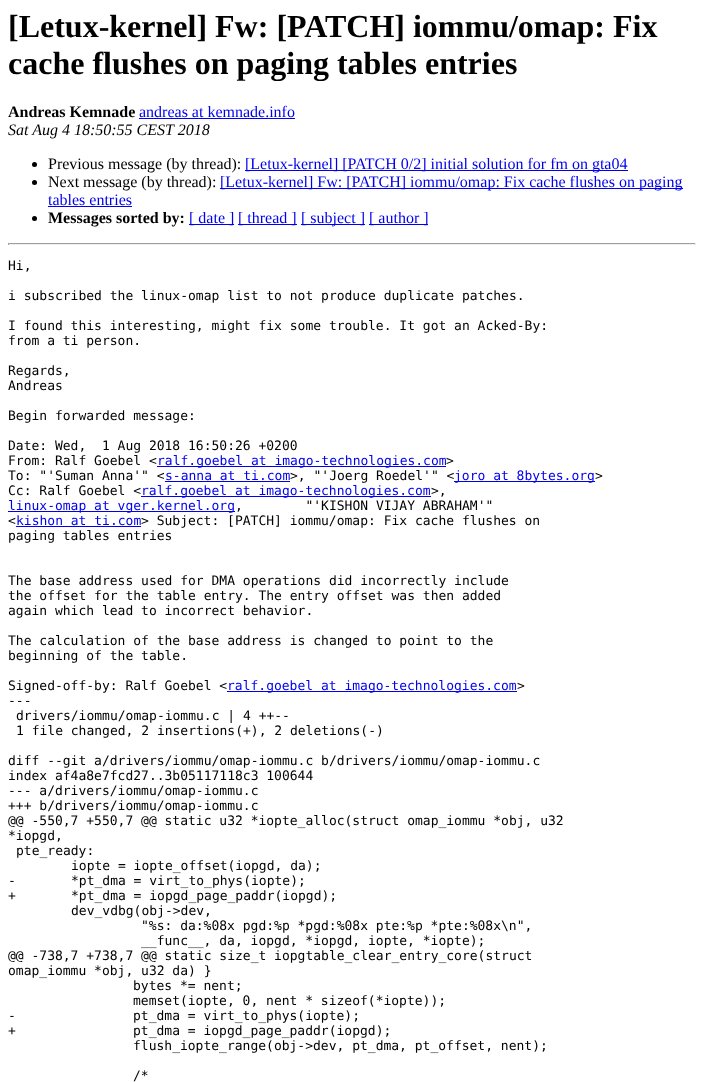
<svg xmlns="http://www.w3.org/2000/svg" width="704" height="1082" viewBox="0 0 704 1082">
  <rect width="100%" height="100%" fill="#ffffff"/>
  <text x="8" y="37" font-family="Liberation Serif" font-size="32" font-weight="bold" fill="#000000">[Letux-kernel] Fw: [PATCH] iommu/omap: Fix</text>
  <text x="8" y="74" font-family="Liberation Serif" font-size="32" font-weight="bold" fill="#000000">cache flushes on paging tables entries</text>
  <text x="8" y="117" font-family="Liberation Serif" font-size="16" font-weight="bold" fill="#000000">Andreas Kemnade</text>
  <text x="139" y="117" font-family="Liberation Serif" font-size="16" fill="#0000ee">andreas at kemnade.info</text>
  <rect x="139" y="118" width="156" height="1" fill="#0000ee"/>
  <text x="8" y="135" font-family="Liberation Serif" font-size="16" font-style="italic" fill="#000000">Sat Aug 4 18:50:55 CEST 2018</text>
  <circle cx="34.5" cy="164.5" r="2.5" fill="#000000"/>
  <text x="48" y="169" font-family="Liberation Serif" font-size="16" fill="#000000">Previous message (by thread):</text>
  <rect x="245" y="170" width="383" height="1" fill="#0000ee"/>
  <text x="245" y="169" font-family="Liberation Serif" font-size="16" fill="#0000ee">[Letux-kernel] [PATCH 0/2] initial solution for fm on gta04</text>
  <circle cx="34.5" cy="182.5" r="2.5" fill="#000000"/>
  <text x="48" y="187" font-family="Liberation Serif" font-size="16" fill="#000000">Next message (by thread):</text>
  <rect x="220" y="188" width="463" height="1" fill="#0000ee"/>
  <text x="220" y="187" font-family="Liberation Serif" font-size="16" fill="#0000ee">[Letux-kernel] Fw: [PATCH] iommu/omap: Fix cache flushes on paging</text>
  <text x="48" y="205" font-family="Liberation Serif" font-size="16" fill="#0000ee">tables entries</text>
  <rect x="48" y="206" width="84" height="1" fill="#0000ee"/>
  <circle cx="34.5" cy="218.5" r="2.5" fill="#000000"/>
  <text x="48" y="223" font-family="Liberation Serif" font-size="16" font-weight="bold" fill="#000000">Messages sorted by:</text>
  <rect x="189" y="224" width="45" height="1" fill="#0000ee"/>
  <text x="189" y="223" font-family="Liberation Serif" font-size="16" fill="#0000ee">[ date ]</text>
  <rect x="238" y="224" width="59" height="1" fill="#0000ee"/>
  <text x="238" y="223" font-family="Liberation Serif" font-size="16" fill="#0000ee">[ thread ]</text>
  <rect x="301" y="224" width="64" height="1" fill="#0000ee"/>
  <text x="301" y="223" font-family="Liberation Serif" font-size="16" fill="#0000ee">[ subject ]</text>
  <rect x="369" y="224" width="59" height="1" fill="#0000ee"/>
  <text x="369" y="223" font-family="Liberation Serif" font-size="16" fill="#0000ee">[ author ]</text>
  <rect x="8" y="243" width="688" height="1" fill="#9f9f9f"/>
  <rect x="695" y="243" width="1" height="2" fill="#eeeeee"/>
  <rect x="8" y="244" width="688" height="1" fill="#eeeeee"/>
  <rect x="8" y="243" width="1" height="2" fill="#9f9f9f"/>
  <text x="8" y="270" font-family="DejaVu Sans Mono" font-size="13" fill="#000000">Hi,</text>
  <text x="8" y="300" font-family="DejaVu Sans Mono" font-size="13" fill="#000000">i subscribed the linux-omap list to not produce duplicate patches.</text>
  <text x="8" y="330" font-family="DejaVu Sans Mono" font-size="13" fill="#000000">I found this interesting, might fix some trouble. It got an Acked-By:</text>
  <text x="8" y="345" font-family="DejaVu Sans Mono" font-size="13" fill="#000000">from a ti person.</text>
  <text x="8" y="375" font-family="DejaVu Sans Mono" font-size="13" fill="#000000">Regards,</text>
  <text x="8" y="390" font-family="DejaVu Sans Mono" font-size="13" fill="#000000">Andreas</text>
  <text x="8" y="420" font-family="DejaVu Sans Mono" font-size="13" fill="#000000">Begin forwarded message:</text>
  <text x="8" y="450" font-family="DejaVu Sans Mono" font-size="13" fill="#000000" xml:space="preserve">Date: Wed,  1 Aug 2018 16:50:26 +0200</text>
  <text x="8" y="465" font-family="DejaVu Sans Mono" font-size="13" fill="#000000">From: Ralf Goebel &lt;</text>
  <rect x="157" y="466" width="289" height="1" fill="#0000ee"/>
  <text x="157" y="465" font-family="DejaVu Sans Mono" font-size="13" fill="#0000ee">ralf.goebel at imago-technologies.com</text>
  <text x="446" y="465" font-family="DejaVu Sans Mono" font-size="13" fill="#000000">&gt;</text>
  <text x="8" y="480" font-family="DejaVu Sans Mono" font-size="13" fill="#000000">To: "'Suman Anna'" &lt;</text>
  <text x="165" y="480" font-family="DejaVu Sans Mono" font-size="13" fill="#0000ee">s-anna at ti.com</text>
  <rect x="165" y="481" width="125" height="1" fill="#0000ee"/>
  <text x="290" y="480" font-family="DejaVu Sans Mono" font-size="13" fill="#000000">&gt;, "'Joerg Roedel'" &lt;</text>
  <rect x="454" y="481" width="141" height="1" fill="#0000ee"/>
  <text x="454" y="480" font-family="DejaVu Sans Mono" font-size="13" fill="#0000ee">joro at 8bytes.org</text>
  <text x="595" y="480" font-family="DejaVu Sans Mono" font-size="13" fill="#000000">&gt;</text>
  <text x="8" y="495" font-family="DejaVu Sans Mono" font-size="13" fill="#000000">Cc: Ralf Goebel &lt;</text>
  <rect x="141" y="496" width="290" height="1" fill="#0000ee"/>
  <text x="141" y="495" font-family="DejaVu Sans Mono" font-size="13" fill="#0000ee">ralf.goebel at imago-technologies.com</text>
  <text x="431" y="495" font-family="DejaVu Sans Mono" font-size="13" fill="#000000">&gt;,</text>
  <rect x="8" y="511" width="227" height="1" fill="#0000ee"/>
  <text x="8" y="510" font-family="DejaVu Sans Mono" font-size="13" fill="#0000ee">linux-omap at vger.kernel.org</text>
  <text x="235" y="510" font-family="DejaVu Sans Mono" font-size="13" fill="#000000" xml:space="preserve">,        "'KISHON VIJAY ABRAHAM'"</text>
  <text x="8" y="525" font-family="DejaVu Sans Mono" font-size="13" fill="#000000">&lt;</text>
  <text x="16" y="525" font-family="DejaVu Sans Mono" font-size="13" fill="#0000ee">kishon at ti.com</text>
  <rect x="16" y="526" width="125" height="1" fill="#0000ee"/>
  <text x="141" y="525" font-family="DejaVu Sans Mono" font-size="13" fill="#000000">&gt; Subject: [PATCH] iommu/omap: Fix cache flushes on</text>
  <text x="8" y="540" font-family="DejaVu Sans Mono" font-size="13" fill="#000000">paging tables entries</text>
  <text x="8" y="585" font-family="DejaVu Sans Mono" font-size="13" fill="#000000">The base address used for DMA operations did incorrectly include</text>
  <text x="8" y="600" font-family="DejaVu Sans Mono" font-size="13" fill="#000000">the offset for the table entry. The entry offset was then added</text>
  <text x="8" y="615" font-family="DejaVu Sans Mono" font-size="13" fill="#000000">again which lead to incorrect behavior.</text>
  <text x="8" y="645" font-family="DejaVu Sans Mono" font-size="13" fill="#000000">The calculation of the base address is changed to point to the</text>
  <text x="8" y="660" font-family="DejaVu Sans Mono" font-size="13" fill="#000000">beginning of the table.</text>
  <text x="8" y="690" font-family="DejaVu Sans Mono" font-size="13" fill="#000000">Signed-off-by: Ralf Goebel &lt;</text>
  <rect x="227" y="691" width="290" height="1" fill="#0000ee"/>
  <text x="227" y="690" font-family="DejaVu Sans Mono" font-size="13" fill="#0000ee">ralf.goebel at imago-technologies.com</text>
  <text x="517" y="690" font-family="DejaVu Sans Mono" font-size="13" fill="#000000">&gt;</text>
  <text x="8" y="705" font-family="DejaVu Sans Mono" font-size="13" fill="#000000">---</text>
  <text x="16" y="720" font-family="DejaVu Sans Mono" font-size="13" fill="#000000">drivers/iommu/omap-iommu.c | 4 ++--</text>
  <text x="16" y="735" font-family="DejaVu Sans Mono" font-size="13" fill="#000000">1 file changed, 2 insertions(+), 2 deletions(-)</text>
  <text x="8" y="765" font-family="DejaVu Sans Mono" font-size="13" fill="#000000">diff --git a/drivers/iommu/omap-iommu.c b/drivers/iommu/omap-iommu.c</text>
  <text x="8" y="780" font-family="DejaVu Sans Mono" font-size="13" fill="#000000">index af4a8e7fcd27..3b05117118c3 100644</text>
  <text x="8" y="795" font-family="DejaVu Sans Mono" font-size="13" fill="#000000">--- a/drivers/iommu/omap-iommu.c</text>
  <text x="8" y="810" font-family="DejaVu Sans Mono" font-size="13" fill="#000000">+++ b/drivers/iommu/omap-iommu.c</text>
  <text x="8" y="825" font-family="DejaVu Sans Mono" font-size="13" fill="#000000">@@ -550,7 +550,7 @@ static u32 *iopte_alloc(struct omap_iommu *obj, u32</text>
  <text x="8" y="840" font-family="DejaVu Sans Mono" font-size="13" fill="#000000">*iopgd,</text>
  <text x="16" y="855" font-family="DejaVu Sans Mono" font-size="13" fill="#000000">pte_ready:</text>
  <text x="71" y="870" font-family="DejaVu Sans Mono" font-size="13" fill="#000000">iopte = iopte_offset(iopgd, da);</text>
  <text x="8" y="885" font-family="DejaVu Sans Mono" font-size="13" fill="#000000">-</text>
  <text x="71" y="885" font-family="DejaVu Sans Mono" font-size="13" fill="#000000">*pt_dma = virt_to_phys(iopte);</text>
  <text x="8" y="900" font-family="DejaVu Sans Mono" font-size="13" fill="#000000">+</text>
  <text x="71" y="900" font-family="DejaVu Sans Mono" font-size="13" fill="#000000">*pt_dma = iopgd_page_paddr(iopgd);</text>
  <text x="71" y="915" font-family="DejaVu Sans Mono" font-size="13" fill="#000000">dev_vdbg(obj-&gt;dev,</text>
  <text x="141" y="930" font-family="DejaVu Sans Mono" font-size="13" fill="#000000">"%s: da:%08x pgd:%p *pgd:%08x pte:%p *pte:%08x\n",</text>
  <text x="141" y="945" font-family="DejaVu Sans Mono" font-size="13" fill="#000000">__func__, da, iopgd, *iopgd, iopte, *iopte);</text>
  <text x="8" y="960" font-family="DejaVu Sans Mono" font-size="13" fill="#000000">@@ -738,7 +738,7 @@ static size_t iopgtable_clear_entry_core(struct</text>
  <text x="8" y="975" font-family="DejaVu Sans Mono" font-size="13" fill="#000000">omap_iommu *obj, u32 da) }</text>
  <text x="133" y="990" font-family="DejaVu Sans Mono" font-size="13" fill="#000000">bytes *= nent;</text>
  <text x="133" y="1005" font-family="DejaVu Sans Mono" font-size="13" fill="#000000">memset(iopte, 0, nent * sizeof(*iopte));</text>
  <text x="8" y="1020" font-family="DejaVu Sans Mono" font-size="13" fill="#000000">-</text>
  <text x="133" y="1020" font-family="DejaVu Sans Mono" font-size="13" fill="#000000">pt_dma = virt_to_phys(iopte);</text>
  <text x="8" y="1035" font-family="DejaVu Sans Mono" font-size="13" fill="#000000">+</text>
  <text x="133" y="1035" font-family="DejaVu Sans Mono" font-size="13" fill="#000000">pt_dma = iopgd_page_paddr(iopgd);</text>
  <text x="133" y="1050" font-family="DejaVu Sans Mono" font-size="13" fill="#000000">flush_iopte_range(obj-&gt;dev, pt_dma, pt_offset, nent);</text>
  <text x="133" y="1080" font-family="DejaVu Sans Mono" font-size="13" fill="#000000">/*</text>
</svg>
